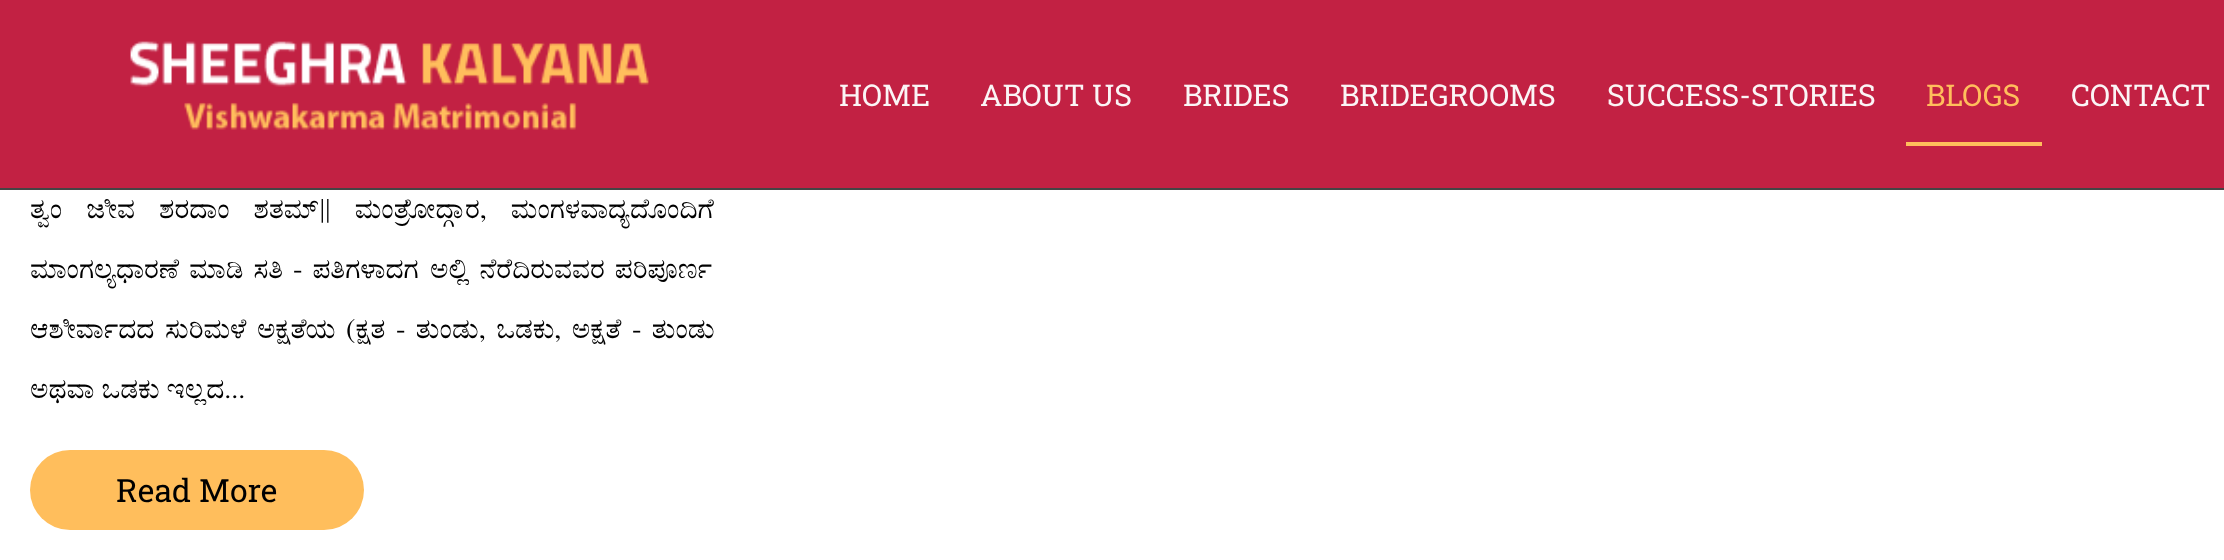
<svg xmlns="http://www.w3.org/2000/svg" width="2224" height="560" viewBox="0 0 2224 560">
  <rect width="100%" height="100%" fill="#ffffff"/>
  <rect x="0" y="0" width="2224" height="188" fill="#c22143"/>
  <rect x="0" y="188" width="2224" height="2" fill="#444444"/>
  <image x="130" y="41" width="519" height="89" href="img1.png"/>
  <text x="839" y="106" font-family="Roboto Slab" font-size="30" fill="#fbf5f6">HOME</text>
  <text x="980" y="106" font-family="Roboto Slab" font-size="30" fill="#fbf5f6">ABOUT US</text>
  <text x="1183" y="106" font-family="Roboto Slab" font-size="30" fill="#fbf5f6">BRIDES</text>
  <text x="1340" y="106" font-family="Roboto Slab" font-size="30" fill="#fbf5f6">BRIDEGROOMS</text>
  <text x="1607" y="106" font-family="Roboto Slab" font-size="30" fill="#fbf5f6">SUCCESS-STORIES</text>
  <rect x="1906" y="142" width="136" height="4" fill="#ffbe5c"/>
  <text x="1926" y="106" font-family="Roboto Slab" font-size="30" fill="#ffbe5c">BLOGS</text>
  <text x="2071" y="106" font-family="Roboto Slab" font-size="30" fill="#fbf5f6">CONTACT</text>
  <text x="30" y="218" word-spacing="17" font-family="FreeSerif" font-size="28" fill="#000000">ತ್ವಂ ಜೀವ ಶರದಾಂ ಶತಮ್|| ಮಂತ್ರೋದ್ಗಾರ, ಮಂಗಳವಾದ್ಯದೊಂದಿಗೆ</text>
  <text x="30" y="278" word-spacing="3" font-family="FreeSerif" font-size="28" fill="#000000">ಮಾಂಗಲ್ಯಧಾರಣೆ ಮಾಡಿ ಸತಿ - ಪತಿಗಳಾದಗ</text>
  <text x="430" y="278" word-spacing="3" font-family="FreeSerif" font-size="28" fill="#000000">ಅಲ್ಲಿ ನೆರೆದಿರುವವರ ಪರಿಪೂರ್ಣ</text>
  <text x="30" y="338" word-spacing="3.5" font-family="FreeSerif" font-size="28" fill="#000000">ಆಶೀರ್ವಾದದ ಸುರಿಮಳೆ ಅಕ್ಷತೆಯ (ಕ್ಷತ - ತುಂಡು, ಒಡಕು, ಅಕ್ಷತೆ - ತುಂಡು</text>
  <text x="30" y="398" font-family="FreeSerif" font-size="28" fill="#000000">ಅಥವಾ ಒಡಕು ಇಲ್ಲದ...</text>
  <rect x="30" y="450" width="334" height="80" rx="40" fill="#ffbe5c"/>
  <text x="116" y="502" font-family="Roboto Slab" font-size="32" fill="#000000">Read More</text>
</svg>
